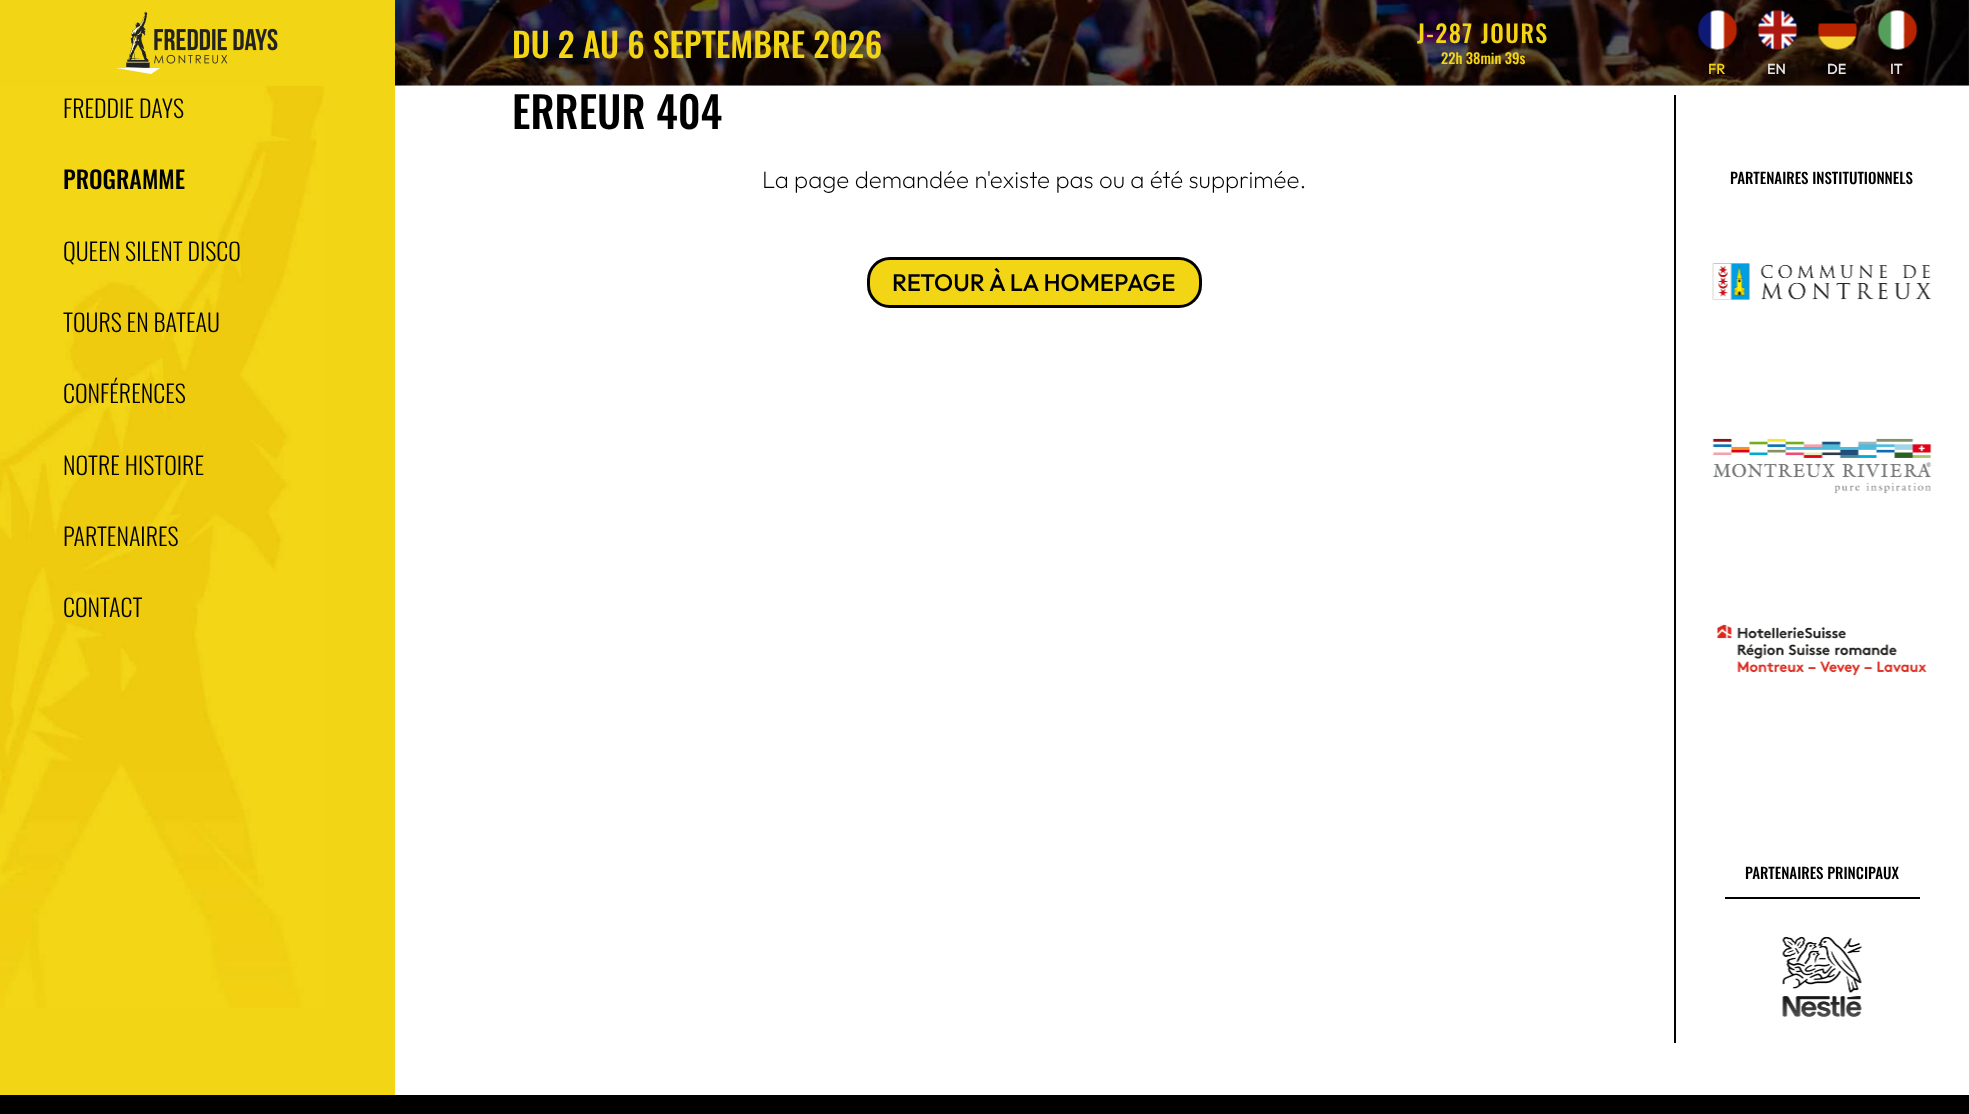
<svg xmlns="http://www.w3.org/2000/svg" width="1969" height="1114" viewBox="0 0 1969 1114">
  <defs>
    <clipPath id="clip1"><path d="M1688 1H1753V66H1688ZM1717.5 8C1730 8 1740 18 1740 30.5C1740 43 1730 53 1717.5 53C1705 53 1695 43 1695 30.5C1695 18 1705 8 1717.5 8Z" clip-rule="evenodd"/></clipPath>
    <filter id="blur1" x="-50%" y="-200%" width="200%" height="500%"><feGaussianBlur stdDeviation="3"/></filter>
    <clipPath id="clip2"><path d="M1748 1H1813V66H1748ZM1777.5 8C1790 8 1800 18 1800 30.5C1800 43 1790 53 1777.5 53C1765 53 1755 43 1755 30.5C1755 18 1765 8 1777.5 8Z" clip-rule="evenodd"/></clipPath>
    <clipPath id="clip3"><path d="M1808 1H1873V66H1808ZM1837.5 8C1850 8 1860 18 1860 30.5C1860 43 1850 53 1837.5 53C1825 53 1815 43 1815 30.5C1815 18 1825 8 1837.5 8Z" clip-rule="evenodd"/></clipPath>
    <linearGradient id="g1" gradientUnits="userSpaceOnUse" x1="1822" y1="1073" x2="1822" y2="990"><stop offset="0" stop-color="#ffffff"/><stop offset="1" stop-color="#ffffff" stop-opacity="0"/></linearGradient>
  </defs>
  <rect width="100%" height="100%" fill="#000000"/>
  <rect x="395" y="0" width="1574" height="1095" fill="#ffffff"/>
  <image x="395" y="0" width="1574" height="86" href="img1.png"/>
  <rect x="0" y="0" width="395" height="1095" fill="#f2d514"/>
  <image x="126" y="11" width="152" height="57" href="img2.png"/>
  <image x="126" y="12" width="24" height="51" href="img3.png"/>
  <path d="M151 74L160 68H116Z" fill="#ffffff"/>
  <text x="512" y="58" font-family="Oswald" font-size="33.6" font-weight="500" fill="#f2d514">DU 2 AU 6 SEPTEMBRE 2026</text>
  <text x="1417" y="43" font-family="Oswald" font-size="24" font-weight="500" letter-spacing="1.5" fill="#f2d514">J-287 JOURS</text>
  <text x="1441" y="64" font-family="Oswald" font-size="14.5" font-weight="500" fill="#f2d514">22h 38min 39s</text>
  <g clip-path="url(#clip1)">
    <rect x="1698" y="11" width="45" height="45" rx="22.5" fill="#000000" fill-opacity="0.25" filter="url(#blur1)"/>
  </g>
  <image x="1697" y="10" width="41" height="40" href="img4.png"/>
  <text x="1708" y="74" font-family="Outfit" font-size="14.5" font-weight="500" fill="#f2d514">FR</text>
  <g clip-path="url(#clip2)">
    <rect x="1758" y="11" width="45" height="45" rx="22.5" fill="#000000" fill-opacity="0.25" filter="url(#blur1)"/>
  </g>
  <image x="1757" y="10" width="41" height="40" href="img5.png"/>
  <text x="1767" y="74" font-family="Outfit" font-size="14.5" font-weight="500" fill="#e5e5e5">EN</text>
  <g clip-path="url(#clip3)">
    <rect x="1818" y="11" width="45" height="45" rx="22.5" fill="#000000" fill-opacity="0.25" filter="url(#blur1)"/>
  </g>
  <image x="1817" y="10" width="41" height="40" href="img6.png"/>
  <text x="1827" y="74" font-family="Outfit" font-size="14.5" font-weight="500" fill="#e5e5e5">DE</text>
  <image x="1877" y="10" width="41" height="40" href="img7.png"/>
  <text x="1890" y="74" font-family="Outfit" font-size="14.5" font-weight="500" fill="#e5e5e5">IT</text>
  <image x="0" y="86" width="324" height="922" href="img8.png"/>
  <text x="63" y="118" font-family="Oswald" font-size="24" font-weight="300" fill="#000000">FREDDIE DAYS</text>
  <text x="63" y="189" font-family="Oswald" font-size="24" font-weight="500" fill="#000000">PROGRAMME</text>
  <text x="63" y="261" font-family="Oswald" font-size="24" font-weight="300" fill="#000000">QUEEN SILENT DISCO</text>
  <text x="63" y="332" font-family="Oswald" font-size="24" font-weight="300" fill="#000000">TOURS EN BATEAU</text>
  <text x="63" y="403" font-family="Oswald" font-size="24" font-weight="300" fill="#000000">CONFÉRENCES</text>
  <text x="63" y="475" font-family="Oswald" font-size="24" font-weight="300" fill="#000000">NOTRE HISTOIRE</text>
  <text x="63" y="546" font-family="Oswald" font-size="24" font-weight="300" fill="#000000">PARTENAIRES</text>
  <text x="63" y="617" font-family="Oswald" font-size="24" font-weight="300" fill="#000000">CONTACT</text>
  <text x="512" y="129" font-family="Oswald" font-size="43" font-weight="500" fill="#000000">ERREUR 404</text>
  <text x="762" y="188" font-family="Outfit" font-size="24" font-weight="200" fill="#000000">La page demandée n'existe pas ou a été supprimée.</text>
  <rect x="868.5" y="258.5" width="332" height="48" rx="21.5" fill="#f2d514" stroke="#000000" stroke-width="3"/>
  <text x="892" y="291" font-family="Outfit" font-size="24" font-weight="500" fill="#000000">RETOUR À LA HOMEPAGE</text>
  <rect x="1674" y="95" width="2" height="948" fill="#000000"/>
  <text x="1730" y="184" font-family="Oswald" font-size="15" font-weight="500" fill="#000000">PARTENAIRES INSTITUTIONNELS</text>
  <image x="1712" y="263" width="220" height="37" href="img9.png"/>
  <image x="1712" y="438" width="220" height="56" href="img10.png"/>
  <image x="1716" y="624" width="211" height="52" href="img11.png"/>
  <text x="1745" y="879" font-family="Oswald" font-size="15" font-weight="500" fill="#000000">PARTENAIRES PRINCIPAUX</text>
  <rect x="1725" y="897" width="195" height="2" fill="#000000"/>
  <image x="1782" y="936" width="80" height="81" href="img12.png"/>
  <rect x="1782" y="992" width="80" height="25" fill="url(#g1)"/>
</svg>
